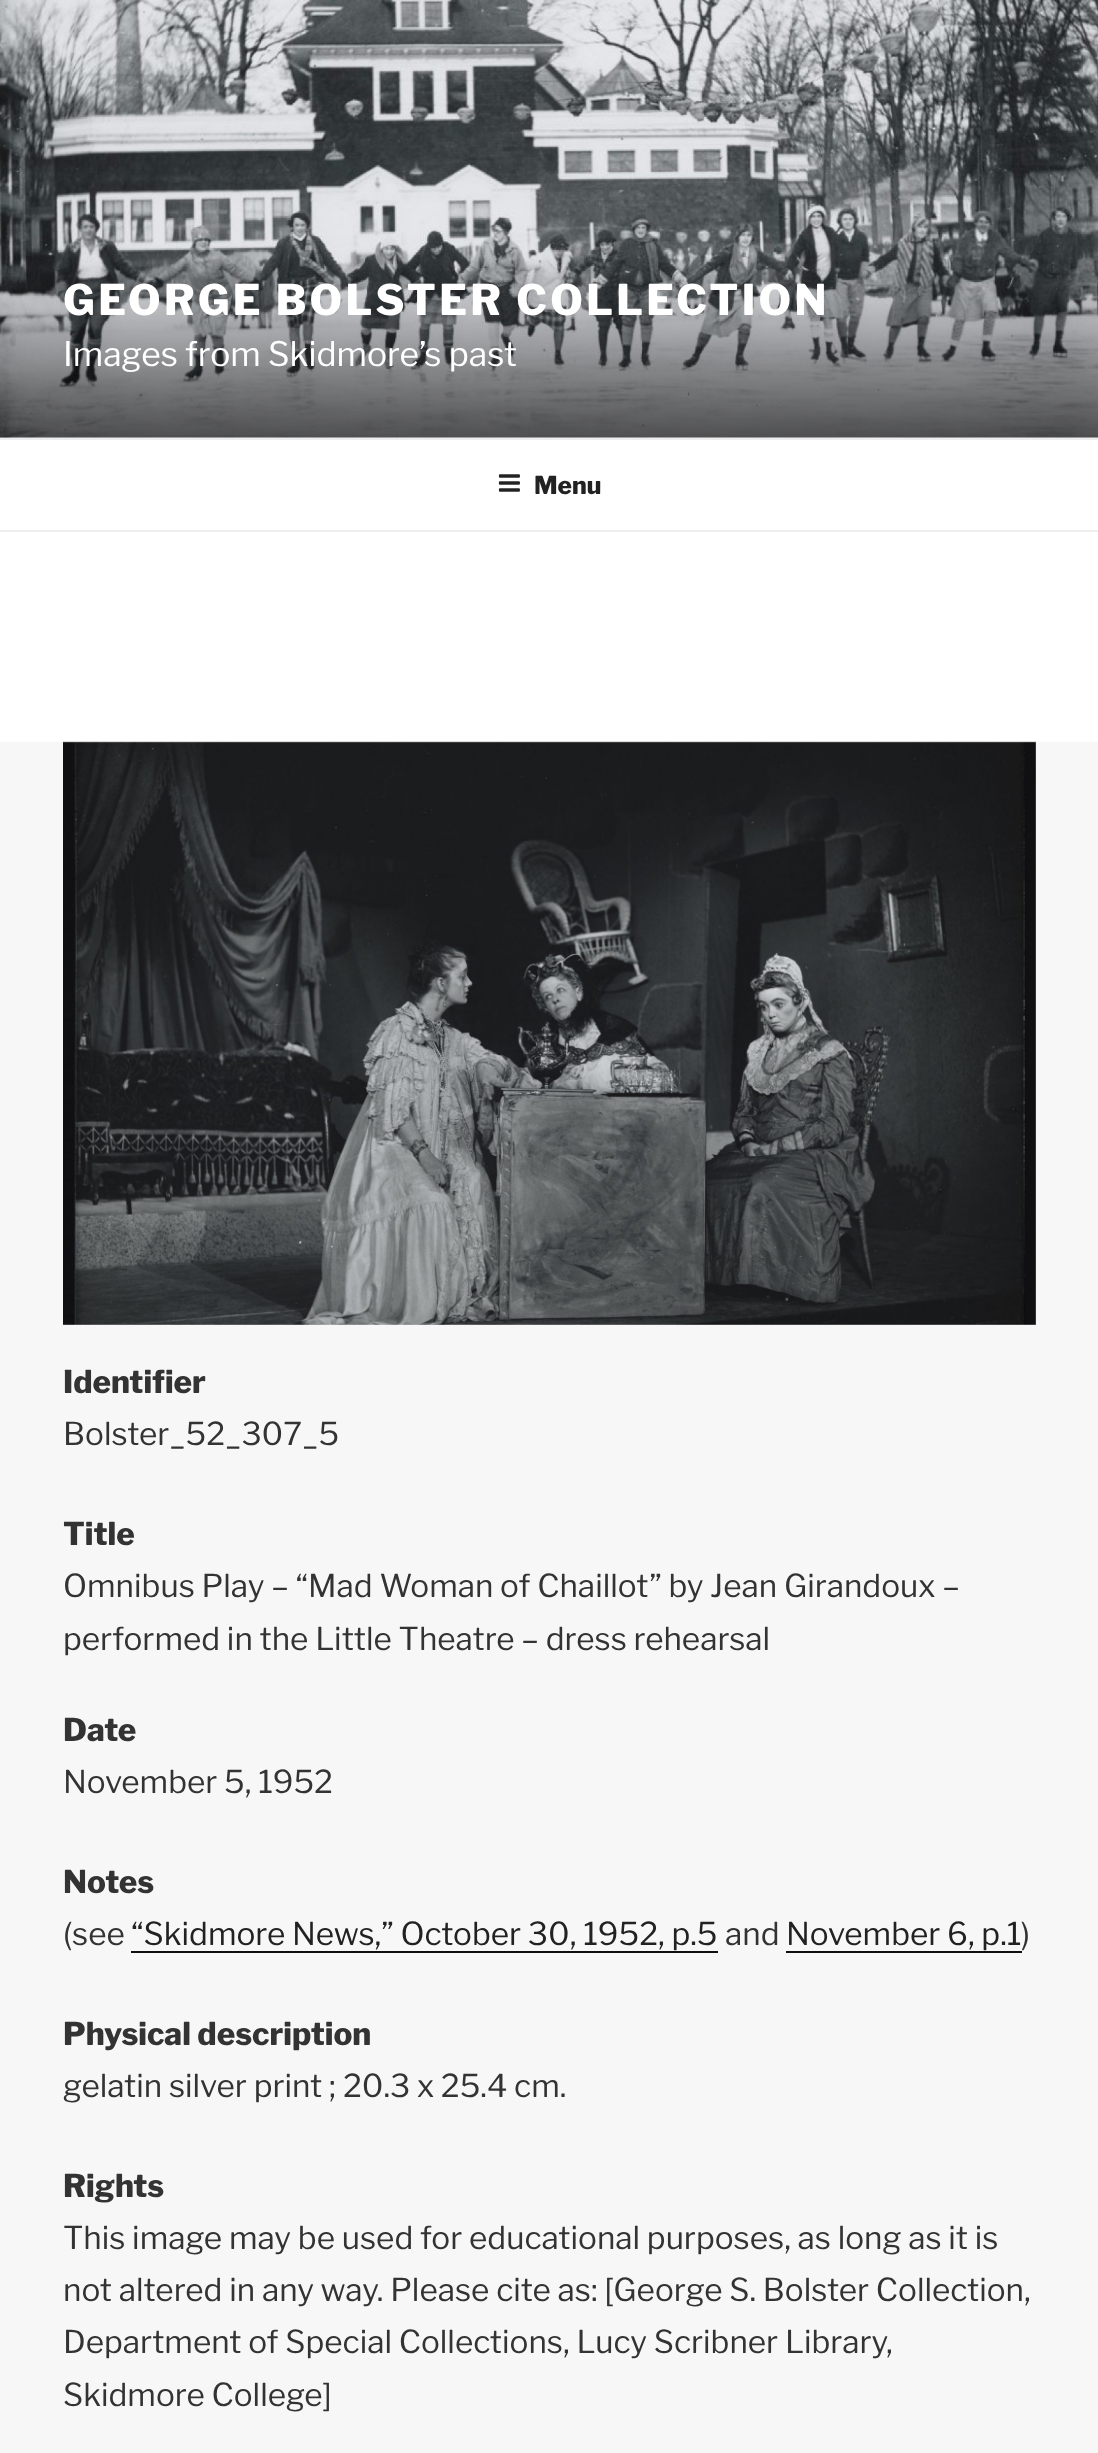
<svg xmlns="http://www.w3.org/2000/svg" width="1098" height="2453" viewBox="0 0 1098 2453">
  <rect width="100%" height="100%" fill="#ffffff"/>
  <rect x="0" y="437" width="1098" height="1" fill="#fafafa"/>
  <image x="0" y="0" width="1098" height="438" href="img1.png"/>
  <text x="63" y="315" font-family="Libre Franklin" font-size="42" font-weight="100" letter-spacing="3.35" fill="#ffffff">GEORGE BOLSTER COLLECTION</text>
  <text x="63" y="366" font-family="'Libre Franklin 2'" font-size="33.6" font-weight="100" fill="#ffffff">Images from Skidmore’s past</text>
  <rect x="0" y="438" width="1098" height="2" fill="#eeeeee"/>
  <rect x="0" y="530" width="1098" height="2" fill="#eeeeee"/>
  <image x="498" y="474" width="22" height="18" href="img2.png"/>
  <text x="534" y="494" font-family="Libre Franklin" font-size="24.5" font-weight="100" fill="#222222">Menu</text>
  <rect x="0" y="742" width="1098" height="1711" fill="#f7f7f7"/>
  <image x="63" y="741" width="973" height="584" href="img3.png"/>
  <text x="63" y="1393" font-family="Libre Franklin" font-size="31.5" font-weight="100" fill="#333333">Identifier</text>
  <text x="63" y="1445" font-family="'Libre Franklin 2'" font-size="31.5" font-weight="100" fill="#333333">Bolster_52_307_5</text>
  <text x="63" y="1545" font-family="Libre Franklin" font-size="31.5" font-weight="100" fill="#333333">Title</text>
  <text x="63" y="1597" font-family="'Libre Franklin 2'" font-size="31.5" font-weight="100" fill="#333333">Omnibus Play – “Mad Woman of Chaillot” by Jean Girandoux –</text>
  <text x="63" y="1650" font-family="'Libre Franklin 2'" font-size="31.5" font-weight="100" fill="#333333">performed in the Little Theatre – dress rehearsal</text>
  <text x="63" y="1741" font-family="Libre Franklin" font-size="31.5" font-weight="100" fill="#333333">Date</text>
  <text x="63" y="1793" font-family="'Libre Franklin 2'" font-size="31.5" font-weight="100" fill="#333333">November 5, 1952</text>
  <text x="63" y="1893" font-family="Libre Franklin" font-size="31.5" font-weight="100" fill="#333333">Notes</text>
  <text x="63" y="1945" font-family="'Libre Franklin 2'" font-size="31.5" font-weight="100" fill="#333333">(see</text>
  <text x="131" y="1945" font-family="'Libre Franklin 2'" font-size="31.5" font-weight="100" fill="#222222">“Skidmore News,” October 30, 1952, p.5</text>
  <rect x="131" y="1951" width="587" height="2" fill="#0f0f0f"/>
  <text x="725" y="1945" font-family="'Libre Franklin 2'" font-size="31.5" font-weight="100" fill="#333333">and</text>
  <text x="786" y="1945" font-family="'Libre Franklin 2'" font-size="31.5" font-weight="100" fill="#222222">November 6, p.1</text>
  <rect x="786" y="1951" width="236" height="2" fill="#0f0f0f"/>
  <text x="1021" y="1945" font-family="'Libre Franklin 2'" font-size="31.5" font-weight="100" fill="#333333">)</text>
  <text x="63" y="2045" font-family="Libre Franklin" font-size="31.5" font-weight="100" fill="#333333">Physical description</text>
  <text x="63" y="2097" font-family="'Libre Franklin 2'" font-size="31.5" font-weight="100" fill="#333333">gelatin silver print ; 20.3 x 25.4 cm.</text>
  <text x="63" y="2197" font-family="Libre Franklin" font-size="31.5" font-weight="100" fill="#333333">Rights</text>
  <text x="63" y="2249" font-family="'Libre Franklin 2'" font-size="31.5" font-weight="100" fill="#333333">This image may be used for educational purposes, as long as it is</text>
  <text x="63" y="2301" font-family="'Libre Franklin 2'" font-size="31.5" font-weight="100" fill="#333333">not altered in any way. Please cite as: [George S. Bolster Collection,</text>
  <text x="63" y="2353" font-family="'Libre Franklin 2'" font-size="31.5" font-weight="100" fill="#333333">Department of Special Collections, Lucy Scribner Library,</text>
  <text x="63" y="2406" font-family="'Libre Franklin 2'" font-size="31.5" font-weight="100" fill="#333333">Skidmore College]</text>
</svg>
